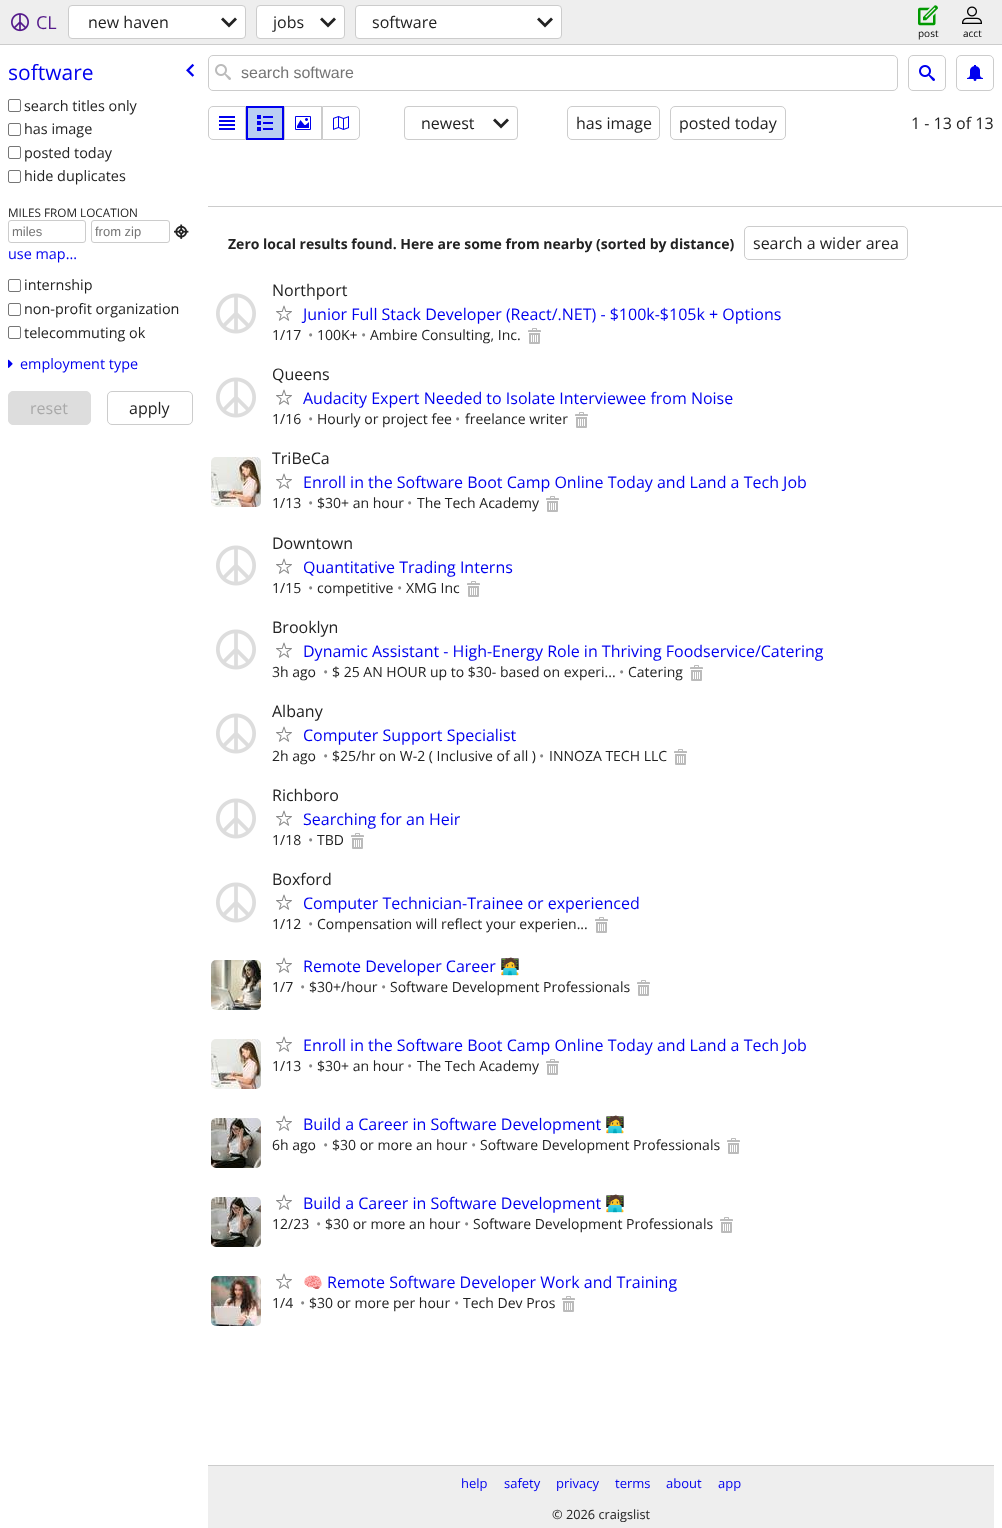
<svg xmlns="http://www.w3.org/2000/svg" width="1002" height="1528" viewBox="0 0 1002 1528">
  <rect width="100%" height="100%" fill="#ffffff"/>
  <rect x="0" y="0" width="1002" height="44" fill="#eeeeee"/>
  <rect x="0" y="44" width="1002" height="1" fill="#cccccc"/>
  <image x="11" y="13" width="18" height="19" href="img1.png"/>
  <text x="36" y="29" font-family="Open Sans" font-size="18" fill="#551a8b">CL</text>
  <rect x="68.5" y="5.5" width="177" height="33" rx="3.5" fill="#ffffff" stroke="#cccccc"/>
  <text x="88" y="28" font-family="Open Sans" font-size="16" fill="#222222">new haven</text>
  <image x="221" y="17" width="16" height="11" href="img2.png"/>
  <rect x="256.5" y="5.5" width="88" height="33" rx="3.5" fill="#ffffff" stroke="#cccccc"/>
  <text x="273" y="28" font-family="Open Sans" font-size="16" fill="#222222">jobs</text>
  <image x="320" y="17" width="16" height="11" href="img2.png"/>
  <rect x="355.5" y="5.5" width="206" height="33" rx="3.5" fill="#ffffff" stroke="#cccccc"/>
  <text x="372" y="28" font-family="Open Sans" font-size="16" fill="#222222">software</text>
  <image x="537" y="17" width="16" height="11" href="img2.png"/>
  <image x="918" y="5" width="20" height="21" href="img3.png"/>
  <text x="918" y="37" font-family="Open Sans" font-size="10" fill="#000000">post</text>
  <image x="962" y="6" width="20" height="18" href="img4.png"/>
  <text x="963" y="37" font-family="Open Sans" font-size="10" fill="#000000">acct</text>
  <text x="8" y="80" font-family="Open Sans" font-size="21" fill="#0000ee">software</text>
  <image x="186" y="63" width="9" height="14" href="img5.png"/>
  <rect x="8.5" y="99.5" width="12" height="12" rx="1.5" fill="none" stroke="#767676"/>
  <text x="24" y="111" font-family="Open Sans" font-size="14.4" fill="#222222">search titles only</text>
  <rect x="8.5" y="123.5" width="12" height="12" rx="1.5" fill="none" stroke="#767676"/>
  <text x="24" y="134" font-family="Open Sans" font-size="14.4" fill="#222222">has image</text>
  <rect x="8.5" y="146.5" width="12" height="12" rx="1.5" fill="none" stroke="#767676"/>
  <text x="24" y="158" font-family="Open Sans" font-size="14.4" fill="#222222">posted today</text>
  <rect x="8.5" y="170.5" width="12" height="12" rx="1.5" fill="none" stroke="#767676"/>
  <text x="24" y="181" font-family="Open Sans" font-size="14.4" fill="#222222">hide duplicates</text>
  <text x="8" y="217" font-family="Open Sans" font-size="11.75" fill="#222222">MILES FROM LOCATION</text>
  <rect x="8.5" y="220.5" width="77" height="22" rx="2.5" fill="none" stroke="#cccccc"/>
  <text x="12" y="236" font-family="Liberation Sans" font-size="13" fill="#757575">miles</text>
  <rect x="91.5" y="220.5" width="78" height="22" rx="2.5" fill="none" stroke="#cccccc"/>
  <text x="95" y="236" font-family="Liberation Sans" font-size="13" fill="#757575">from zip</text>
  <image x="174" y="224" width="15" height="15" href="img6.png"/>
  <text x="8" y="259" font-family="Open Sans" font-size="14.4" fill="#0000ee">use map...</text>
  <rect x="8.5" y="279.5" width="12" height="12" rx="1.5" fill="none" stroke="#767676"/>
  <text x="24" y="290" font-family="Open Sans" font-size="14.4" fill="#222222">internship</text>
  <rect x="8.5" y="303.5" width="12" height="12" rx="1.5" fill="none" stroke="#767676"/>
  <text x="24" y="314" font-family="Open Sans" font-size="14.4" fill="#222222">non-profit organization</text>
  <rect x="8.5" y="326.5" width="12" height="12" rx="1.5" fill="none" stroke="#767676"/>
  <text x="24" y="338" font-family="Open Sans" font-size="14.4" fill="#222222">telecommuting ok</text>
  <image x="8" y="359" width="5" height="9" href="img7.png"/>
  <text x="20" y="369" font-family="Open Sans" font-size="14.4" fill="#0000ee">employment type</text>
  <rect x="8.5" y="391.5" width="82" height="33" rx="4.5" fill="#dddddd" stroke="#dddddd"/>
  <text x="30" y="414" font-family="Open Sans" font-size="16" fill="#a9a9a9">reset</text>
  <rect x="107.5" y="391.5" width="85" height="33" rx="4.5" fill="none" stroke="#cccccc"/>
  <text x="129" y="414" font-family="Open Sans" font-size="16" fill="#222222">apply</text>
  <rect x="208.5" y="55.5" width="689" height="35" rx="4.5" fill="none" stroke="#cccccc"/>
  <image x="215" y="64" width="16" height="16" href="img8.png"/>
  <text x="241" y="78" font-family="Liberation Sans" font-size="16" fill="#757575">search software</text>
  <rect x="908.5" y="55.5" width="37" height="35" rx="4.5" fill="none" stroke="#cccccc"/>
  <image x="919" y="65" width="16" height="16" href="img9.png"/>
  <rect x="956.5" y="55.5" width="37" height="35" rx="4.5" fill="none" stroke="#cccccc"/>
  <image x="967" y="65" width="16" height="16" href="img10.png"/>
  <path d="M213 106.5H245.5V139.5H213C210.5 139.5 208.5 137.5 208.5 135V111C208.5 108.5 210.5 106.5 213 106.5Z" fill="none" stroke="#cccccc"/>
  <image x="219" y="116" width="16" height="14" href="img11.png"/>
  <rect x="247" y="107" width="36" height="32" fill="#bacff2" stroke="#0000ee" stroke-width="2"/>
  <image x="257" y="115" width="16" height="16" href="img12.png"/>
  <rect x="284.5" y="106.5" width="37" height="33" fill="none" stroke="#cccccc"/>
  <image x="295" y="116" width="16" height="14" href="img13.png"/>
  <path d="M322.5 106.5H355C357.5 106.5 359.5 108.5 359.5 111V135C359.5 137.5 357.5 139.5 355 139.5H322.5Z" fill="none" stroke="#cccccc"/>
  <image x="333" y="116" width="16" height="14" href="img14.png"/>
  <rect x="404.5" y="106.5" width="113" height="33" rx="3.5" fill="none" stroke="#cccccc"/>
  <text x="421" y="129" font-family="Open Sans" font-size="16" fill="#222222">newest</text>
  <image x="493" y="118" width="16" height="11" href="img2.png"/>
  <rect x="567.5" y="106.5" width="92" height="33" rx="4.5" fill="none" stroke="#cccccc"/>
  <text x="576" y="129" font-family="Open Sans" font-size="16" fill="#222222">has image</text>
  <rect x="670.5" y="106.5" width="115" height="33" rx="4.5" fill="none" stroke="#cccccc"/>
  <text x="679" y="129" font-family="Open Sans" font-size="16" fill="#222222">posted today</text>
  <text x="911" y="129" font-family="Open Sans" font-size="16" fill="#222222">1 - 13 of 13</text>
  <rect x="208" y="206" width="794" height="1" fill="#cccccc"/>
  <text x="228" y="249" font-family="Open Sans" font-size="14" font-weight="bold" fill="#222222">Zero local results found. Here are some from nearby (sorted by distance)</text>
  <rect x="744.5" y="226.5" width="163" height="33" rx="4.5" fill="none" stroke="#cccccc"/>
  <text x="753" y="249" font-family="Open Sans" font-size="16" fill="#222222">search a wider area</text>
  <image x="216" y="293" width="40" height="41" href="img15.png"/>
  <text x="272" y="296" font-family="Open Sans" font-size="16" fill="#222222">Northport</text>
  <image x="276" y="305" width="16" height="16" href="img16.png"/>
  <text x="303" y="320" font-family="Open Sans" font-size="16" fill="#0000ee">Junior Full Stack Developer (React/.NET) - $100k-$105k + Options</text>
  <text x="272" y="340" font-family="Open Sans" font-size="14" fill="#222222">1/17</text>
  <text x="308" y="340" font-family="Open Sans" font-size="14" fill="#888888">•</text>
  <text x="317" y="340" font-family="Open Sans" font-size="14" fill="#222222">100K+</text>
  <text x="361" y="340" font-family="Open Sans" font-size="14" fill="#888888">•</text>
  <text x="370" y="340" font-family="Open Sans" font-size="14" fill="#222222">Ambire Consulting, Inc.</text>
  <image x="528" y="328" width="13" height="16" href="img17.png"/>
  <image x="216" y="377" width="40" height="41" href="img15.png"/>
  <text x="272" y="380" font-family="Open Sans" font-size="16" fill="#222222">Queens</text>
  <image x="276" y="389" width="16" height="16" href="img16.png"/>
  <text x="303" y="404" font-family="Open Sans" font-size="16" fill="#0000ee">Audacity Expert Needed to Isolate Interviewee from Noise</text>
  <text x="272" y="424" font-family="Open Sans" font-size="14" fill="#222222">1/16</text>
  <text x="308" y="424" font-family="Open Sans" font-size="14" fill="#888888">•</text>
  <text x="317" y="424" font-family="Open Sans" font-size="14" fill="#222222">Hourly or project fee</text>
  <text x="455" y="424" font-family="Open Sans" font-size="14" fill="#888888">•</text>
  <text x="465" y="424" font-family="Open Sans" font-size="14" fill="#222222">freelance writer</text>
  <image x="575" y="412" width="13" height="16" href="img17.png"/>
  <image x="211" y="457" width="50" height="50" href="img18.png"/>
  <text x="272" y="464" font-family="Open Sans" font-size="16" fill="#222222">TriBeCa</text>
  <image x="276" y="473" width="16" height="16" href="img16.png"/>
  <text x="303" y="488" font-family="Open Sans" font-size="16" fill="#0000ee">Enroll in the Software Boot Camp Online Today and Land a Tech Job</text>
  <text x="272" y="508" font-family="Open Sans" font-size="14" fill="#222222">1/13</text>
  <text x="308" y="508" font-family="Open Sans" font-size="14" fill="#888888">•</text>
  <text x="317" y="508" font-family="Open Sans" font-size="14" fill="#222222">$30+ an hour</text>
  <text x="407" y="508" font-family="Open Sans" font-size="14" fill="#888888">•</text>
  <text x="417" y="508" font-family="Open Sans" font-size="14" fill="#222222">The Tech Academy</text>
  <image x="546" y="496" width="13" height="16" href="img17.png"/>
  <image x="216" y="545" width="40" height="41" href="img15.png"/>
  <text x="272" y="549" font-family="Open Sans" font-size="16" fill="#222222">Downtown</text>
  <image x="276" y="558" width="16" height="16" href="img16.png"/>
  <text x="303" y="573" font-family="Open Sans" font-size="16" fill="#0000ee">Quantitative Trading Interns</text>
  <text x="272" y="593" font-family="Open Sans" font-size="14" fill="#222222">1/15</text>
  <text x="308" y="593" font-family="Open Sans" font-size="14" fill="#888888">•</text>
  <text x="317" y="593" font-family="Open Sans" font-size="14" fill="#222222">competitive</text>
  <text x="397" y="593" font-family="Open Sans" font-size="14" fill="#888888">•</text>
  <text x="406" y="593" font-family="Open Sans" font-size="14" fill="#222222">XMG Inc</text>
  <image x="467" y="581" width="13" height="16" href="img17.png"/>
  <image x="216" y="629" width="40" height="41" href="img15.png"/>
  <text x="272" y="633" font-family="Open Sans" font-size="16" fill="#222222">Brooklyn</text>
  <image x="276" y="642" width="16" height="16" href="img16.png"/>
  <text x="303" y="657" font-family="Open Sans" font-size="16" fill="#0000ee">Dynamic Assistant - High-Energy Role in Thriving Foodservice/Catering</text>
  <text x="272" y="677" font-family="Open Sans" font-size="14" fill="#222222">3h ago</text>
  <text x="323" y="677" font-family="Open Sans" font-size="14" fill="#888888">•</text>
  <text x="332" y="677" font-family="Open Sans" font-size="14" fill="#222222">$ 25 AN HOUR up to $30- based on experi...</text>
  <text x="619" y="677" font-family="Open Sans" font-size="14" fill="#888888">•</text>
  <text x="628" y="677" font-family="Open Sans" font-size="14" fill="#222222">Catering</text>
  <image x="690" y="665" width="13" height="16" href="img17.png"/>
  <image x="216" y="713" width="40" height="41" href="img15.png"/>
  <text x="272" y="717" font-family="Open Sans" font-size="16" fill="#222222">Albany</text>
  <image x="276" y="726" width="16" height="16" href="img16.png"/>
  <text x="303" y="741" font-family="Open Sans" font-size="16" fill="#0000ee">Computer Support Specialist</text>
  <text x="272" y="761" font-family="Open Sans" font-size="14" fill="#222222">2h ago</text>
  <text x="323" y="761" font-family="Open Sans" font-size="14" fill="#888888">•</text>
  <text x="332" y="761" font-family="Open Sans" font-size="14" fill="#222222">$25/hr on W-2 ( Inclusive of all )</text>
  <text x="539" y="761" font-family="Open Sans" font-size="14" fill="#888888">•</text>
  <text x="549" y="761" font-family="Open Sans" font-size="14" fill="#222222">INNOZA TECH LLC</text>
  <image x="674" y="749" width="13" height="16" href="img17.png"/>
  <image x="216" y="798" width="40" height="41" href="img15.png"/>
  <text x="272" y="801" font-family="Open Sans" font-size="16" fill="#222222">Richboro</text>
  <image x="276" y="810" width="16" height="16" href="img16.png"/>
  <text x="303" y="825" font-family="Open Sans" font-size="16" fill="#0000ee">Searching for an Heir</text>
  <text x="272" y="845" font-family="Open Sans" font-size="14" fill="#222222">1/18</text>
  <text x="308" y="845" font-family="Open Sans" font-size="14" fill="#888888">•</text>
  <text x="317" y="845" font-family="Open Sans" font-size="14" fill="#222222">TBD</text>
  <image x="351" y="833" width="13" height="16" href="img17.png"/>
  <image x="216" y="882" width="40" height="41" href="img15.png"/>
  <text x="272" y="885" font-family="Open Sans" font-size="16" fill="#222222">Boxford</text>
  <image x="276" y="894" width="16" height="16" href="img16.png"/>
  <text x="303" y="909" font-family="Open Sans" font-size="16" fill="#0000ee">Computer Technician-Trainee or experienced</text>
  <text x="272" y="929" font-family="Open Sans" font-size="14" fill="#222222">1/12</text>
  <text x="308" y="929" font-family="Open Sans" font-size="14" fill="#888888">•</text>
  <text x="317" y="929" font-family="Open Sans" font-size="14" fill="#222222">Compensation will reflect your experien...</text>
  <image x="595" y="917" width="13" height="16" href="img17.png"/>
  <image x="211" y="960" width="50" height="50" href="img19.png"/>
  <image x="276" y="957" width="16" height="16" href="img16.png"/>
  <text x="303" y="972" font-family="Open Sans" font-size="16" fill="#0000ee">Remote Developer Career</text>
  <text x="500" y="972" font-family="Noto Color Emoji" font-size="16" fill="#0000ee">🧑‍💻</text>
  <text x="272" y="992" font-family="Open Sans" font-size="14" fill="#222222">1/7</text>
  <text x="300" y="992" font-family="Open Sans" font-size="14" fill="#888888">•</text>
  <text x="309" y="992" font-family="Open Sans" font-size="14" fill="#222222">$30+/hour</text>
  <text x="381" y="992" font-family="Open Sans" font-size="14" fill="#888888">•</text>
  <text x="390" y="992" font-family="Open Sans" font-size="14" fill="#222222">Software Development Professionals</text>
  <image x="637" y="980" width="13" height="16" href="img17.png"/>
  <image x="211" y="1039" width="50" height="50" href="img18.png"/>
  <image x="276" y="1036" width="16" height="16" href="img16.png"/>
  <text x="303" y="1051" font-family="Open Sans" font-size="16" fill="#0000ee">Enroll in the Software Boot Camp Online Today and Land a Tech Job</text>
  <text x="272" y="1071" font-family="Open Sans" font-size="14" fill="#222222">1/13</text>
  <text x="308" y="1071" font-family="Open Sans" font-size="14" fill="#888888">•</text>
  <text x="317" y="1071" font-family="Open Sans" font-size="14" fill="#222222">$30+ an hour</text>
  <text x="407" y="1071" font-family="Open Sans" font-size="14" fill="#888888">•</text>
  <text x="417" y="1071" font-family="Open Sans" font-size="14" fill="#222222">The Tech Academy</text>
  <image x="546" y="1059" width="13" height="16" href="img17.png"/>
  <image x="211" y="1118" width="50" height="50" href="img20.png"/>
  <image x="276" y="1115" width="16" height="16" href="img16.png"/>
  <text x="303" y="1130" font-family="Open Sans" font-size="16" fill="#0000ee">Build a Career in Software Development</text>
  <text x="605" y="1130" font-family="Noto Color Emoji" font-size="16" fill="#0000ee">🧑‍💻</text>
  <text x="272" y="1150" font-family="Open Sans" font-size="14" fill="#222222">6h ago</text>
  <text x="323" y="1150" font-family="Open Sans" font-size="14" fill="#888888">•</text>
  <text x="332" y="1150" font-family="Open Sans" font-size="14" fill="#222222">$30 or more an hour</text>
  <text x="471" y="1150" font-family="Open Sans" font-size="14" fill="#888888">•</text>
  <text x="480" y="1150" font-family="Open Sans" font-size="14" fill="#222222">Software Development Professionals</text>
  <image x="727" y="1138" width="13" height="16" href="img17.png"/>
  <image x="211" y="1197" width="50" height="50" href="img20.png"/>
  <image x="276" y="1194" width="16" height="16" href="img16.png"/>
  <text x="303" y="1209" font-family="Open Sans" font-size="16" fill="#0000ee">Build a Career in Software Development</text>
  <text x="605" y="1209" font-family="Noto Color Emoji" font-size="16" fill="#0000ee">🧑‍💻</text>
  <text x="272" y="1229" font-family="Open Sans" font-size="14" fill="#222222">12/23</text>
  <text x="316" y="1229" font-family="Open Sans" font-size="14" fill="#888888">•</text>
  <text x="325" y="1229" font-family="Open Sans" font-size="14" fill="#222222">$30 or more an hour</text>
  <text x="464" y="1229" font-family="Open Sans" font-size="14" fill="#888888">•</text>
  <text x="473" y="1229" font-family="Open Sans" font-size="14" fill="#222222">Software Development Professionals</text>
  <image x="720" y="1217" width="13" height="16" href="img17.png"/>
  <image x="211" y="1276" width="50" height="50" href="img21.png"/>
  <image x="276" y="1273" width="16" height="16" href="img16.png"/>
  <text x="303" y="1288" font-family="Noto Color Emoji" font-size="16" fill="#0000ee">🧠</text>
  <text x="327" y="1288" font-family="Open Sans" font-size="16" fill="#0000ee">Remote Software Developer Work and Training</text>
  <text x="272" y="1308" font-family="Open Sans" font-size="14" fill="#222222">1/4</text>
  <text x="300" y="1308" font-family="Open Sans" font-size="14" fill="#888888">•</text>
  <text x="309" y="1308" font-family="Open Sans" font-size="14" fill="#222222">$30 or more per hour</text>
  <text x="454" y="1308" font-family="Open Sans" font-size="14" fill="#888888">•</text>
  <text x="463" y="1308" font-family="Open Sans" font-size="14" fill="#222222">Tech Dev Pros</text>
  <image x="562" y="1296" width="13" height="16" href="img17.png"/>
  <rect x="208" y="1466" width="786" height="62" fill="#eeeeee"/>
  <rect x="208" y="1465" width="786" height="1" fill="#cccccc"/>
  <text x="461" y="1488" font-family="Open Sans" font-size="13" fill="#0000ee">help</text>
  <text x="504" y="1488" font-family="Open Sans" font-size="13" fill="#0000ee">safety</text>
  <text x="556" y="1488" font-family="Open Sans" font-size="13" fill="#0000ee">privacy</text>
  <text x="615" y="1488" font-family="Open Sans" font-size="13" fill="#0000ee">terms</text>
  <text x="666" y="1488" font-family="Open Sans" font-size="13" fill="#0000ee">about</text>
  <text x="718" y="1488" font-family="Open Sans" font-size="13" fill="#0000ee">app</text>
  <text x="552" y="1519" font-family="Open Sans" font-size="12.75" fill="#222222">© 2026 craigslist</text>
</svg>
